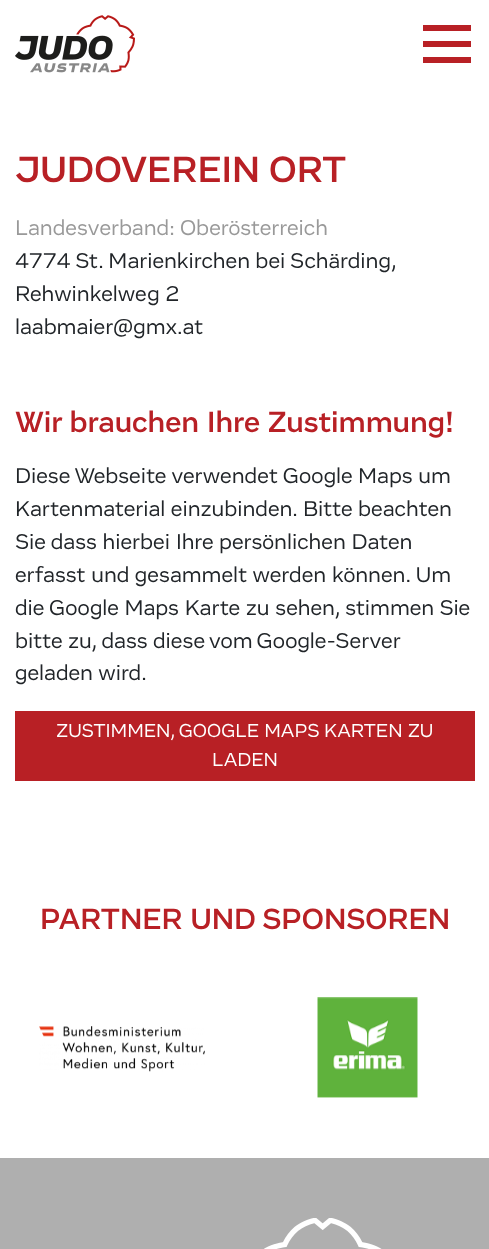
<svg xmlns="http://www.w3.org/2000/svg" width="489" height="1249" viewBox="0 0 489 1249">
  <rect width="100%" height="100%" fill="#ffffff"/>
  <image x="15" y="15" width="120" height="58" href="img1.png"/>
  <path d="M423 28H471M423 44H471M423 60H471" fill="none" stroke="#b82025" stroke-width="6"/>
  <text x="15" y="182" font-family="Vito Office" font-size="37.5" font-weight="500" fill="#b82025">JUDOVEREIN ORT</text>
  <text x="15" y="235" font-family="Vito Office" font-size="22" fill="#999999">Landesverband: Oberösterreich</text>
  <text x="15" y="268" word-spacing="-0.5" font-family="Vito Office" font-size="22" fill="#212529">4774 St. Marienkirchen bei Schärding,</text>
  <text x="15" y="301" font-family="Vito Office" font-size="22" fill="#212529">Rehwinkelweg 2</text>
  <text x="15" y="334" font-family="Vito Office" font-size="22" fill="#212529">laabmaier@gmx.at</text>
  <text x="15" y="432" font-family="Vito Office" font-size="30" font-weight="500" fill="#b82025">Wir brauchen Ihre Zustimmung!</text>
  <text x="15" y="483" font-family="Vito Office" font-size="22" fill="#212529">Diese Webseite verwendet Google Maps um</text>
  <text x="15" y="516" font-family="Vito Office" font-size="22" fill="#212529">Kartenmaterial einzubinden. Bitte beachten</text>
  <text x="15" y="549" font-family="Vito Office" font-size="22" fill="#212529">Sie dass hierbei Ihre persönlichen Daten</text>
  <text x="15" y="582" font-family="Vito Office" font-size="22" fill="#212529">erfasst und gesammelt werden können. Um</text>
  <text x="15" y="615" font-family="Vito Office" font-size="22" fill="#212529">die Google Maps Karte zu sehen, stimmen Sie</text>
  <text x="15" y="648" font-family="Vito Office" font-size="22" fill="#212529">bitte zu, dass</text>
  <text x="153" y="648" word-spacing="-1" font-family="Vito Office" font-size="22" fill="#212529">diese vom Google-Server</text>
  <text x="15" y="680" font-family="Vito Office" font-size="22" fill="#212529">geladen wird.</text>
  <rect x="15" y="711" width="460" height="70" fill="#b82025"/>
  <text x="56" y="737" font-family="Vito Office" font-size="19.25" fill="#ffffff">ZUSTIMMEN, GOOGLE MAPS KARTEN ZU</text>
  <text x="212" y="766" font-family="Vito Office" font-size="19.25" fill="#ffffff">LADEN</text>
  <text x="40" y="929" font-family="Vito Office" font-size="30" font-weight="500" fill="#b82025">PARTNER UND SPONSOREN</text>
  <image x="39" y="1026" width="166" height="46" href="img2.png"/>
  <image x="317" y="997" width="101" height="101" href="img3.png"/>
  <rect x="0" y="1158" width="489" height="91" fill="#afafaf"/>
  <image x="264" y="1218" width="118" height="31" href="img4.png"/>
</svg>
